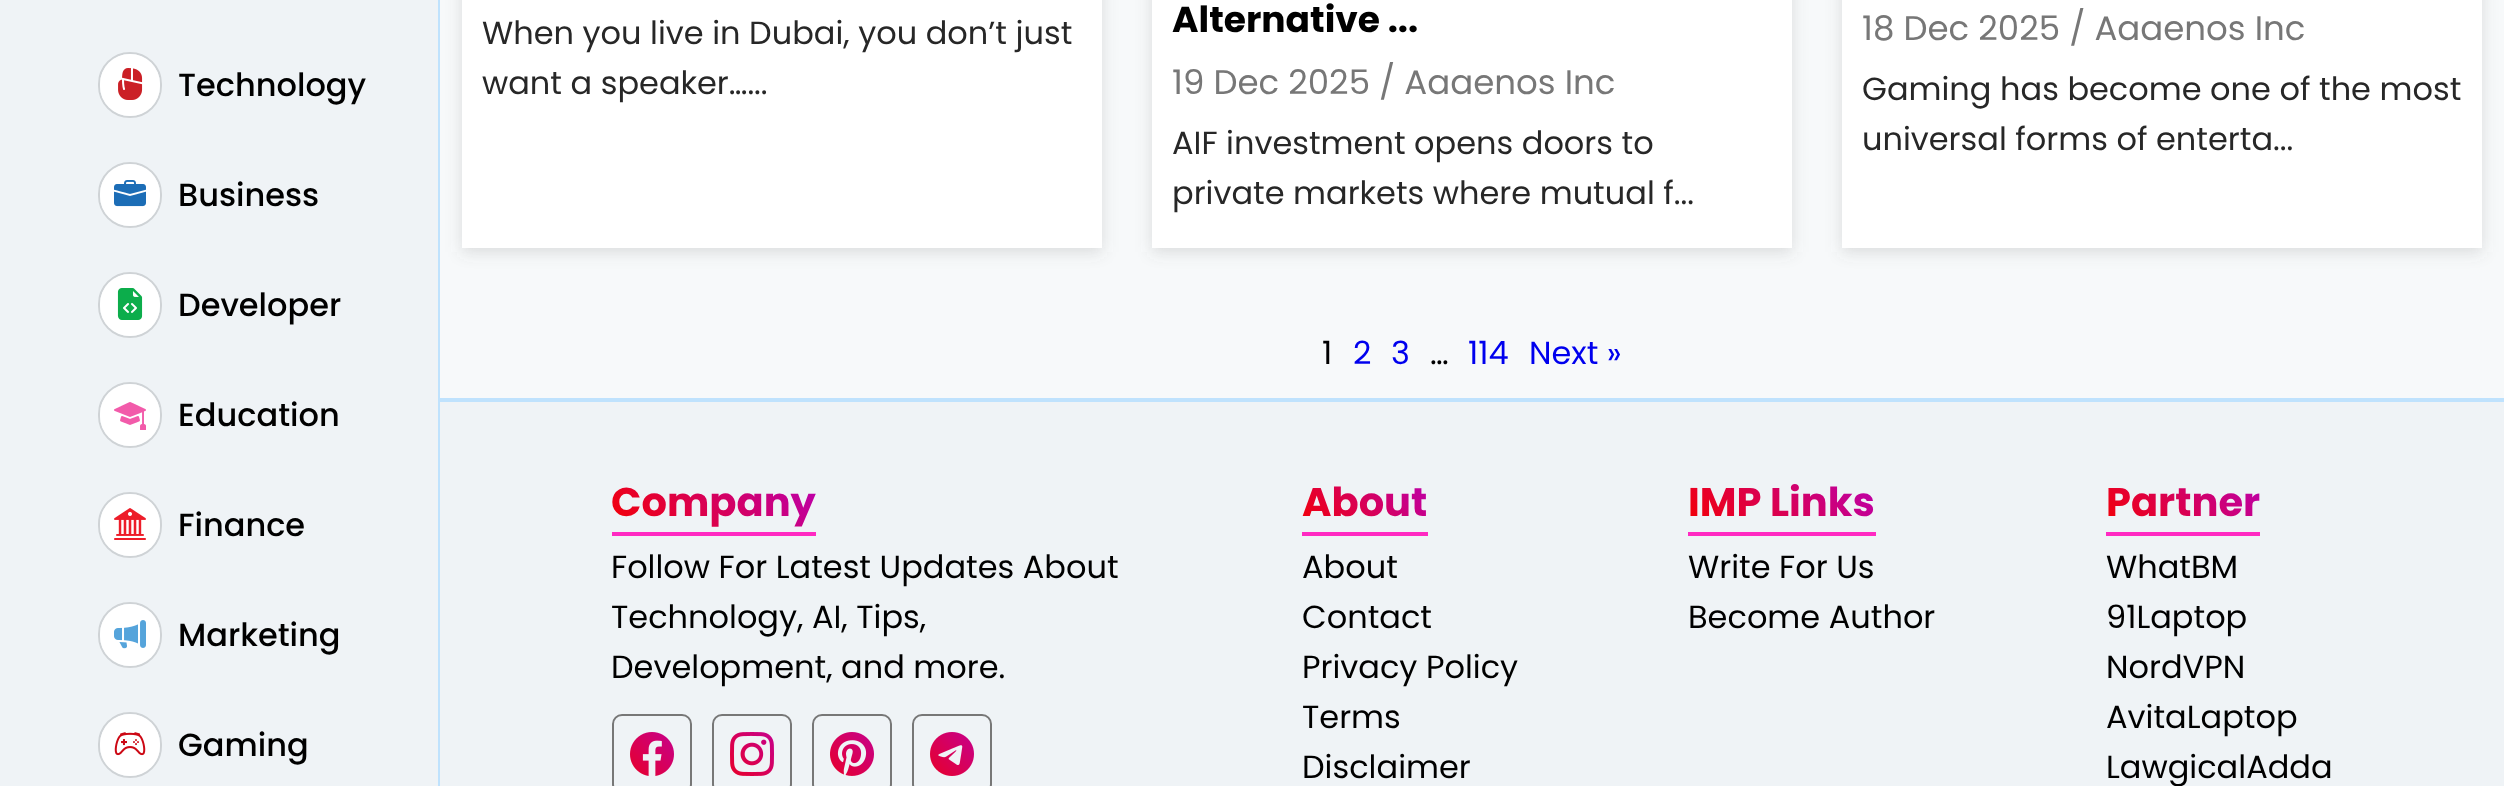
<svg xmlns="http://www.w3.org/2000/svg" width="2504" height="786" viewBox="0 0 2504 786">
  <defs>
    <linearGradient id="g1" gradientUnits="userSpaceOnUse" x1="783" y1="437" x2="644" y2="567"><stop offset="0" stop-color="#b900b4"/><stop offset="1" stop-color="#f50000"/></linearGradient>
    <linearGradient id="g2" gradientUnits="userSpaceOnUse" x1="1413" y1="457" x2="1316" y2="547"><stop offset="0" stop-color="#b900b4"/><stop offset="1" stop-color="#f50000"/></linearGradient>
    <linearGradient id="g3" gradientUnits="userSpaceOnUse" x1="1847" y1="441" x2="1717" y2="562"><stop offset="0" stop-color="#b900b4"/><stop offset="1" stop-color="#f50000"/></linearGradient>
    <linearGradient id="g4" gradientUnits="userSpaceOnUse" x1="2240" y1="449" x2="2127" y2="554"><stop offset="0" stop-color="#b900b4"/><stop offset="1" stop-color="#f50000"/></linearGradient>
    <filter id="blur1" x="-50%" y="-200%" width="200%" height="500%"><feGaussianBlur stdDeviation="8"/></filter>
  </defs>
  <rect width="100%" height="100%" fill="#f7f9fa"/>
  <rect x="462" y="-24" width="640" height="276" fill="#636363" fill-opacity="0.2" filter="url(#blur1)"/>
  <rect x="0" y="0" width="438" height="786" fill="#eff3f6"/>
  <rect x="438" y="0" width="2" height="786" fill="#bfe2fd"/>
  <rect x="99" y="53" width="62" height="64" rx="31" fill="none" stroke="#cfd3d6" stroke-width="2"/>
  <rect x="100" y="54" width="60" height="62" rx="30" fill="#ffffff"/>
  <image x="118" y="68" width="25" height="32" href="img1.png"/>
  <text x="178" y="96" font-family="Poppins" font-size="32" font-weight="500" fill="#000000">Technology</text>
  <rect x="99" y="163" width="62" height="64" rx="31" fill="none" stroke="#cfd3d6" stroke-width="2"/>
  <rect x="100" y="164" width="60" height="62" rx="30" fill="#ffffff"/>
  <image x="114" y="180" width="32" height="27" href="img2.png"/>
  <text x="178" y="206" font-family="Poppins" font-size="32" font-weight="500" fill="#000000">Business</text>
  <rect x="99" y="273" width="62" height="64" rx="31" fill="none" stroke="#cfd3d6" stroke-width="2"/>
  <rect x="100" y="274" width="60" height="62" rx="30" fill="#ffffff"/>
  <image x="117" y="288" width="26" height="32" href="img3.png"/>
  <text x="178" y="316" font-family="Poppins" font-size="32" font-weight="500" fill="#000000">Developer</text>
  <rect x="99" y="383" width="62" height="64" rx="31" fill="none" stroke="#cfd3d6" stroke-width="2"/>
  <rect x="100" y="384" width="60" height="62" rx="30" fill="#ffffff"/>
  <image x="114" y="402" width="32" height="28" href="img4.png"/>
  <text x="178" y="426" font-family="Poppins" font-size="32" font-weight="500" fill="#000000">Education</text>
  <rect x="99" y="493" width="62" height="64" rx="31" fill="none" stroke="#cfd3d6" stroke-width="2"/>
  <rect x="100" y="494" width="60" height="62" rx="30" fill="#ffffff"/>
  <image x="114" y="508" width="32" height="32" href="img5.png"/>
  <text x="178" y="536" font-family="Poppins" font-size="32" font-weight="500" fill="#000000">Finance</text>
  <rect x="99" y="603" width="62" height="64" rx="31" fill="none" stroke="#cfd3d6" stroke-width="2"/>
  <rect x="100" y="604" width="60" height="62" rx="30" fill="#ffffff"/>
  <image x="114" y="620" width="32" height="29" href="img6.png"/>
  <text x="178" y="646" font-family="Poppins" font-size="32" font-weight="500" fill="#000000">Marketing</text>
  <rect x="99" y="713" width="62" height="64" rx="31" fill="none" stroke="#cfd3d6" stroke-width="2"/>
  <rect x="100" y="714" width="60" height="62" rx="30" fill="#ffffff"/>
  <image x="114" y="732" width="32" height="24" href="img7.png"/>
  <text x="178" y="756" font-family="Poppins" font-size="32" font-weight="500" fill="#000000">Gaming</text>
  <rect x="462" y="0" width="640" height="248" fill="#ffffff"/>
  <text x="482" y="44" font-family="Poppins" font-size="32" fill="#272727">When you live in Dubai, you don’t just</text>
  <text x="482" y="94" font-family="Poppins" font-size="32" fill="#272727">want a speaker…...</text>
  <rect x="1152" y="-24" width="640" height="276" fill="#636363" fill-opacity="0.2" filter="url(#blur1)"/>
  <rect x="1152" y="0" width="640" height="248" fill="#ffffff"/>
  <text x="1172" y="32" font-family="Poppins" font-size="36" font-weight="bold" fill="#000000">Alternative ...</text>
  <text x="1172" y="94" font-family="Poppins" font-size="34" fill="#777777">19 Dec 2025 / Aaaenos Inc</text>
  <text x="1172" y="154" font-family="Poppins" font-size="32" fill="#272727">AIF investment opens doors to</text>
  <text x="1172" y="204" font-family="Poppins" font-size="32" fill="#272727">private markets where mutual f...</text>
  <rect x="1842" y="-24" width="640" height="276" fill="#636363" fill-opacity="0.2" filter="url(#blur1)"/>
  <rect x="1842" y="0" width="640" height="248" fill="#ffffff"/>
  <text x="1862" y="40" font-family="Poppins" font-size="34" fill="#777777">18 Dec 2025 / Aaaenos Inc</text>
  <text x="1862" y="100" font-family="Poppins" font-size="32" fill="#272727">Gaming has become one of the most</text>
  <text x="1862" y="150" font-family="Poppins" font-size="32" fill="#272727">universal forms of enterta...</text>
  <text x="1322" y="364" font-family="Poppins" font-size="32" fill="#000000">1</text>
  <text x="1353" y="364" font-family="Poppins" font-size="32" fill="#0000ee">2</text>
  <text x="1391" y="364" font-family="Poppins" font-size="32" fill="#0000ee">3</text>
  <text x="1430" y="364" font-family="Poppins" font-size="32" fill="#000000">…</text>
  <text x="1468" y="364" font-family="Poppins" font-size="32" fill="#0000ee">114</text>
  <text x="1529" y="364" font-family="Poppins" font-size="32" fill="#0000ee">Next »</text>
  <rect x="440" y="402" width="2064" height="384" fill="#eff3f6"/>
  <rect x="440" y="398" width="2064" height="4" fill="#bfe2fd"/>
  <text x="611" y="516" font-family="Poppins" font-size="40" font-weight="bold" fill="url(#g1)">Company</text>
  <rect x="612" y="532" width="204" height="4" fill="#ff29c2"/>
  <text x="611" y="578" font-family="Poppins" font-size="32" fill="#000000">Follow For Latest Updates About</text>
  <text x="611" y="628" font-family="Poppins" font-size="32" fill="#000000">Technology, AI, Tips,</text>
  <text x="611" y="678" font-family="Poppins" font-size="32" fill="#000000">Development, and more.</text>
  <rect x="613" y="715" width="78" height="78" rx="9" fill="none" stroke="#777777" stroke-width="2"/>
  <image x="630" y="732" width="44" height="44" href="img8.png"/>
  <rect x="713" y="715" width="78" height="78" rx="9" fill="none" stroke="#777777" stroke-width="2"/>
  <image x="730" y="732" width="44" height="44" href="img9.png"/>
  <rect x="813" y="715" width="78" height="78" rx="9" fill="none" stroke="#777777" stroke-width="2"/>
  <image x="830" y="732" width="44" height="44" href="img10.png"/>
  <rect x="913" y="715" width="78" height="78" rx="9" fill="none" stroke="#777777" stroke-width="2"/>
  <image x="930" y="732" width="44" height="44" href="img11.png"/>
  <text x="1302" y="516" font-family="Poppins" font-size="40" font-weight="bold" fill="url(#g2)">About</text>
  <rect x="1302" y="532" width="126" height="4" fill="#ff29c2"/>
  <text x="1302" y="578" font-family="Poppins" font-size="32" fill="#000000">About</text>
  <text x="1302" y="628" font-family="Poppins" font-size="32" fill="#000000">Contact</text>
  <text x="1302" y="678" font-family="Poppins" font-size="32" fill="#000000">Privacy Policy</text>
  <text x="1302" y="728" font-family="Poppins" font-size="32" fill="#000000">Terms</text>
  <text x="1302" y="778" font-family="Poppins" font-size="32" fill="#000000">Disclaimer</text>
  <text x="1688" y="516" font-family="Poppins" font-size="40" font-weight="bold" fill="url(#g3)">IMP Links</text>
  <rect x="1688" y="532" width="188" height="4" fill="#ff29c2"/>
  <text x="1688" y="578" font-family="Poppins" font-size="32" fill="#000000">Write For Us</text>
  <text x="1688" y="628" font-family="Poppins" font-size="32" fill="#000000">Become Author</text>
  <text x="2106" y="516" font-family="Poppins" font-size="40" font-weight="bold" fill="url(#g4)">Partner</text>
  <rect x="2106" y="532" width="154" height="4" fill="#ff29c2"/>
  <text x="2106" y="578" font-family="Poppins" font-size="32" fill="#000000">WhatBM</text>
  <text x="2106" y="628" font-family="Poppins" font-size="32" fill="#000000">91Laptop</text>
  <text x="2106" y="678" font-family="Poppins" font-size="32" fill="#000000">NordVPN</text>
  <text x="2106" y="728" font-family="Poppins" font-size="32" fill="#000000">AvitaLaptop</text>
  <text x="2106" y="778" font-family="Poppins" font-size="32" fill="#000000">LawgicalAdda</text>
</svg>
